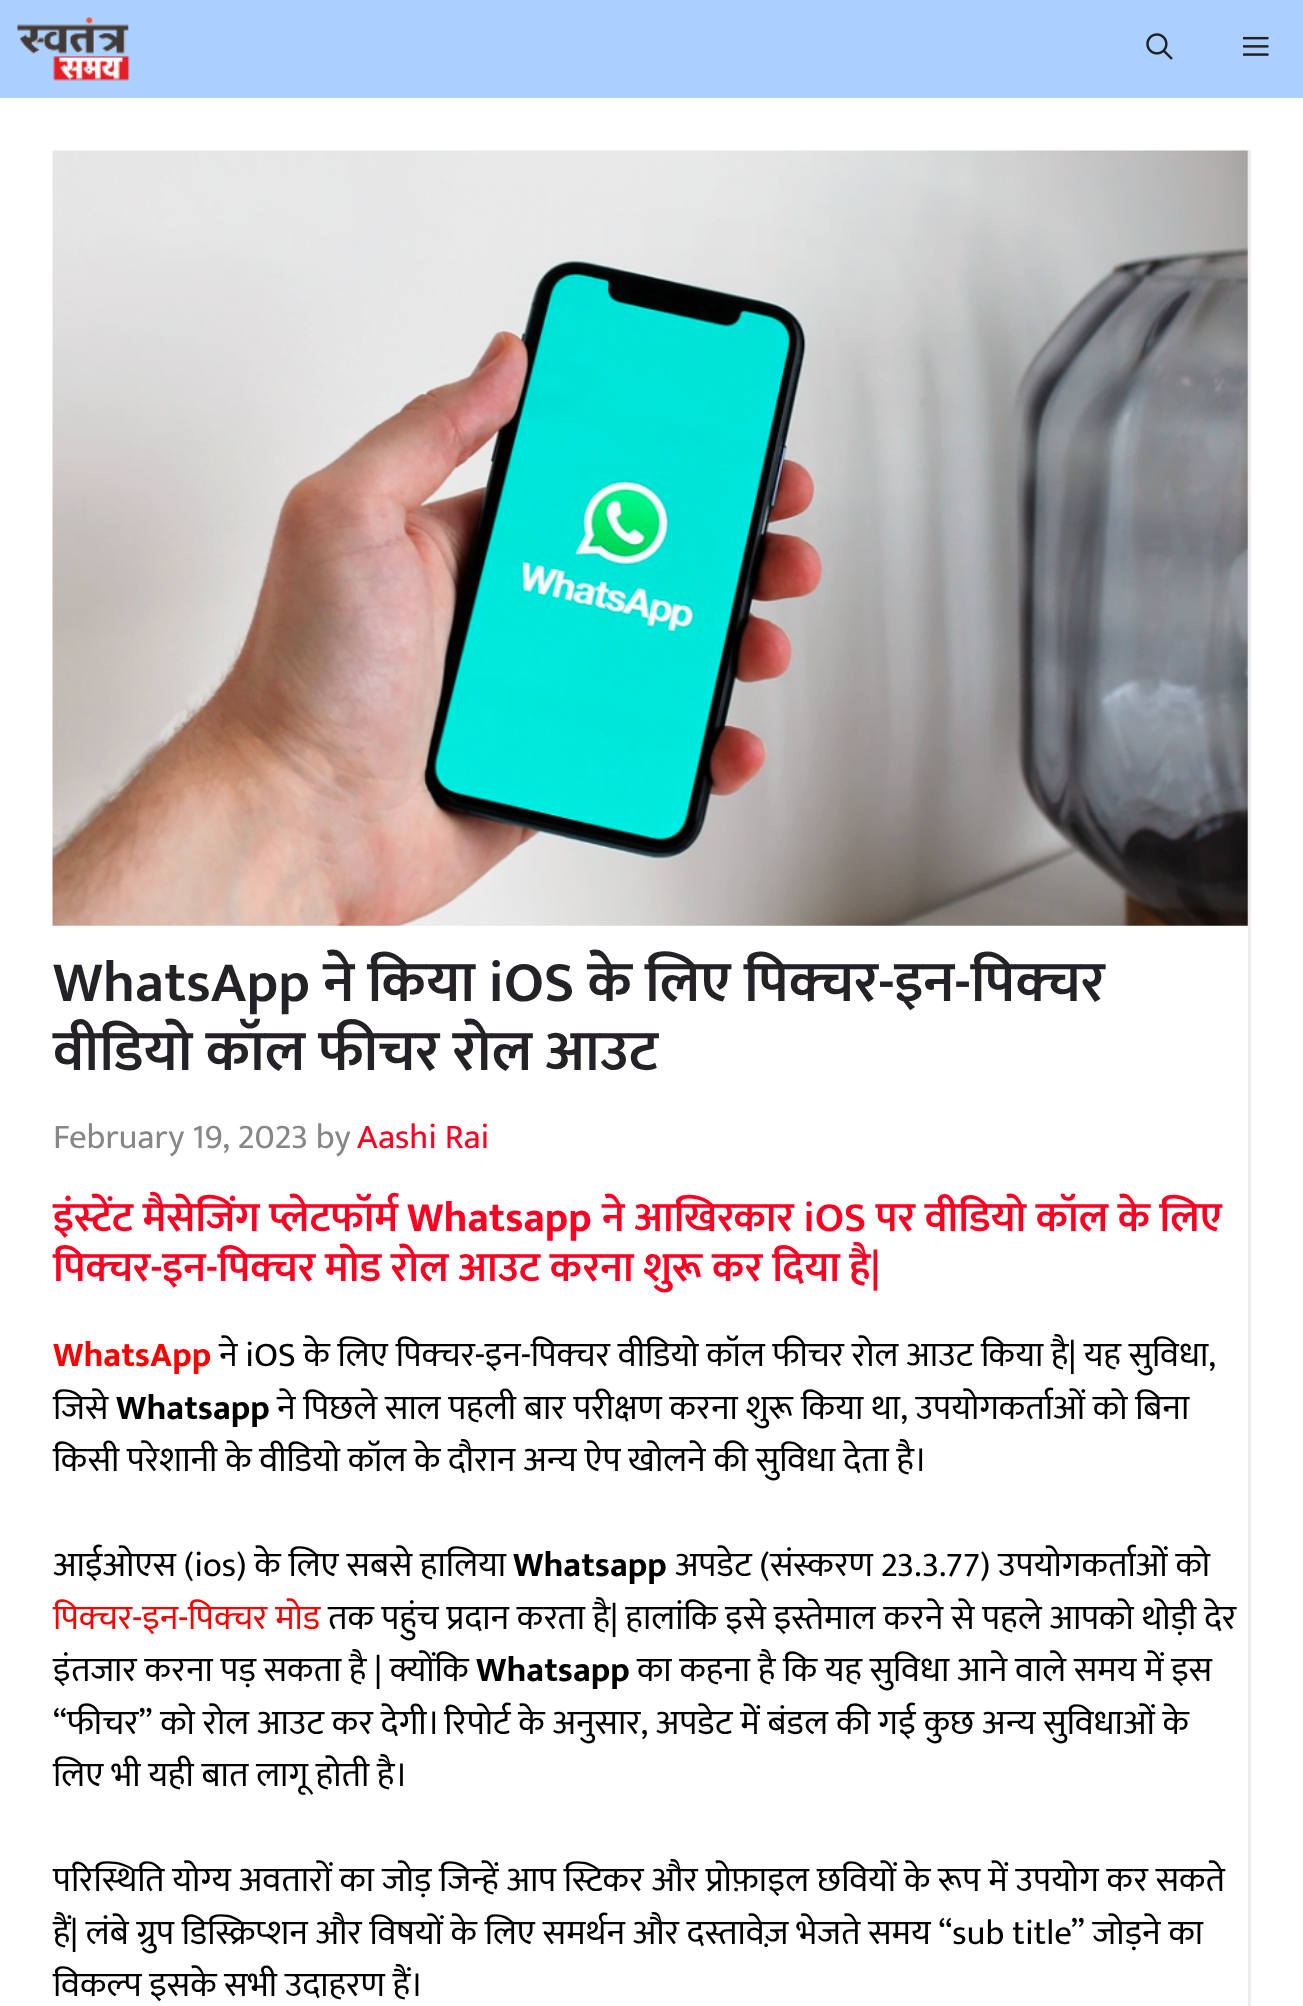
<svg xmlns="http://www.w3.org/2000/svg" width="1303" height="2006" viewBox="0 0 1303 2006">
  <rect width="100%" height="100%" fill="#ffffff"/>
  <rect x="0" y="0" width="1303" height="98" fill="#abcfff"/>
  <image x="17" y="17" width="113" height="64" href="img1.png"/>
  <image x="1146" y="33" width="27" height="27" href="img2.png"/>
  <image x="1243" y="36" width="26" height="20" href="img3.png"/>
  <path d="M1251 150V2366L1248 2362V150Z" fill="#ededed"/>
  <image x="52" y="150" width="1196" height="776" href="img4.png"/>
  <text x="53" y="1001" font-family="Mukta" font-size="57.75" font-weight="600" fill="#242226">WhatsApp ने किया iOS के लिए पिक्चर-इन-पिक्चर</text>
  <text x="53" y="1070" font-family="Mukta" font-size="57.75" font-weight="600" fill="#242226">वीडियो कॉल फीचर रोल आउट</text>
  <text x="53" y="1148" font-family="Mukta" font-size="35" fill="#878787">February 19, 2023 by</text>
  <text x="357" y="1148" font-family="Mukta" font-size="35" fill="#fd0022">Aashi Rai</text>
  <text x="53" y="1231" font-family="Mukta" font-size="42" font-weight="600" fill="#fd0022">इंस्टेंट मैसेजिंग प्लेटफॉर्म</text>
  <text x="407" y="1231" font-family="Mukta" font-size="42" font-weight="bold" fill="#fd0022">Whatsapp</text>
  <text x="602" y="1231" font-family="Mukta" font-size="42" font-weight="600" fill="#fd0022">ने आखिरकार iOS पर वीडियो कॉल के लिए</text>
  <text x="53" y="1281" font-family="Mukta" font-size="42" font-weight="600" fill="#fd0022">पिक्चर-इन-पिक्चर मोड रोल आउट करना शुरू कर दिया है|</text>
  <text x="53" y="1366" font-family="Mukta" font-size="35" font-weight="bold" fill="#fa0000">WhatsApp</text>
  <text x="219" y="1366" font-family="Mukta" font-size="35" fill="#000000">ने iOS के लिए पिक्चर-इन-पिक्चर वीडियो कॉल फीचर रोल आउट किया है| यह सुविधा,</text>
  <text x="53" y="1419" font-family="Mukta" font-size="35" fill="#000000">जिसे</text>
  <text x="116" y="1419" font-family="Mukta" font-size="35" font-weight="bold" fill="#000000">Whatsapp</text>
  <text x="277" y="1419" font-family="Mukta" font-size="35" fill="#000000">ने पिछले साल पहली बार परीक्षण करना शुरू किया था, उपयोगकर्ताओं को बिना</text>
  <text x="53" y="1471" font-family="Mukta" font-size="35" fill="#000000">किसी परेशानी के वीडियो कॉल के दौरान अन्य ऐप खोलने की सुविधा देता है।</text>
  <text x="53" y="1576" font-family="Mukta" font-size="35" fill="#000000">आईओएस (ios) के लिए सबसे हालिया</text>
  <text x="513" y="1576" font-family="Mukta" font-size="35" font-weight="bold" fill="#000000">Whatsapp</text>
  <text x="675" y="1576" font-family="Mukta" font-size="35" fill="#000000">अपडेट (संस्करण 23.3.77) उपयोगकर्ताओं को</text>
  <text x="53" y="1629" font-family="Mukta" font-size="35" fill="#fa0000">पिक्चर-इन-पिक्चर मोड</text>
  <text x="328" y="1629" font-family="Mukta" font-size="35" fill="#000000">तक पहुंच प्रदान करता है| हालांकि इसे इस्तेमाल करने से पहले आपको थोड़ी देर</text>
  <text x="53" y="1681" font-family="Mukta" font-size="35" fill="#000000">इंतजार करना पड़ सकता है | क्योंकि</text>
  <text x="476" y="1681" font-family="Mukta" font-size="35" font-weight="bold" fill="#000000">Whatsapp</text>
  <text x="637" y="1681" font-family="Mukta" font-size="35" fill="#000000">का कहना है कि यह सुविधा आने वाले समय में इस</text>
  <text x="53" y="1734" font-family="Mukta" font-size="35" fill="#000000">“फीचर” को रोल आउट कर देगी। रिपोर्ट के अनुसार, अपडेट में बंडल की गई कुछ अन्य सुविधाओं के</text>
  <text x="53" y="1786" font-family="Mukta" font-size="35" fill="#000000">लिए भी यही बात लागू होती है।</text>
  <text x="53" y="1891" font-family="Mukta" font-size="35" fill="#000000">परिस्थिति योग्य अवतारों का जोड़ जिन्हें आप स्टिकर और प्रोफ़ाइल छवियों के रूप में उपयोग कर सकते</text>
  <text x="53" y="1944" font-family="Mukta" font-size="35" fill="#000000">हैं| लंबे ग्रुप डिस्क्रिप्शन और विषयों के लिए समर्थन और दस्तावेज़ भेजते समय “sub title” जोड़ने का</text>
  <text x="53" y="1996" font-family="Mukta" font-size="35" fill="#000000">विकल्प इसके सभी उदाहरण हैं।</text>
</svg>
